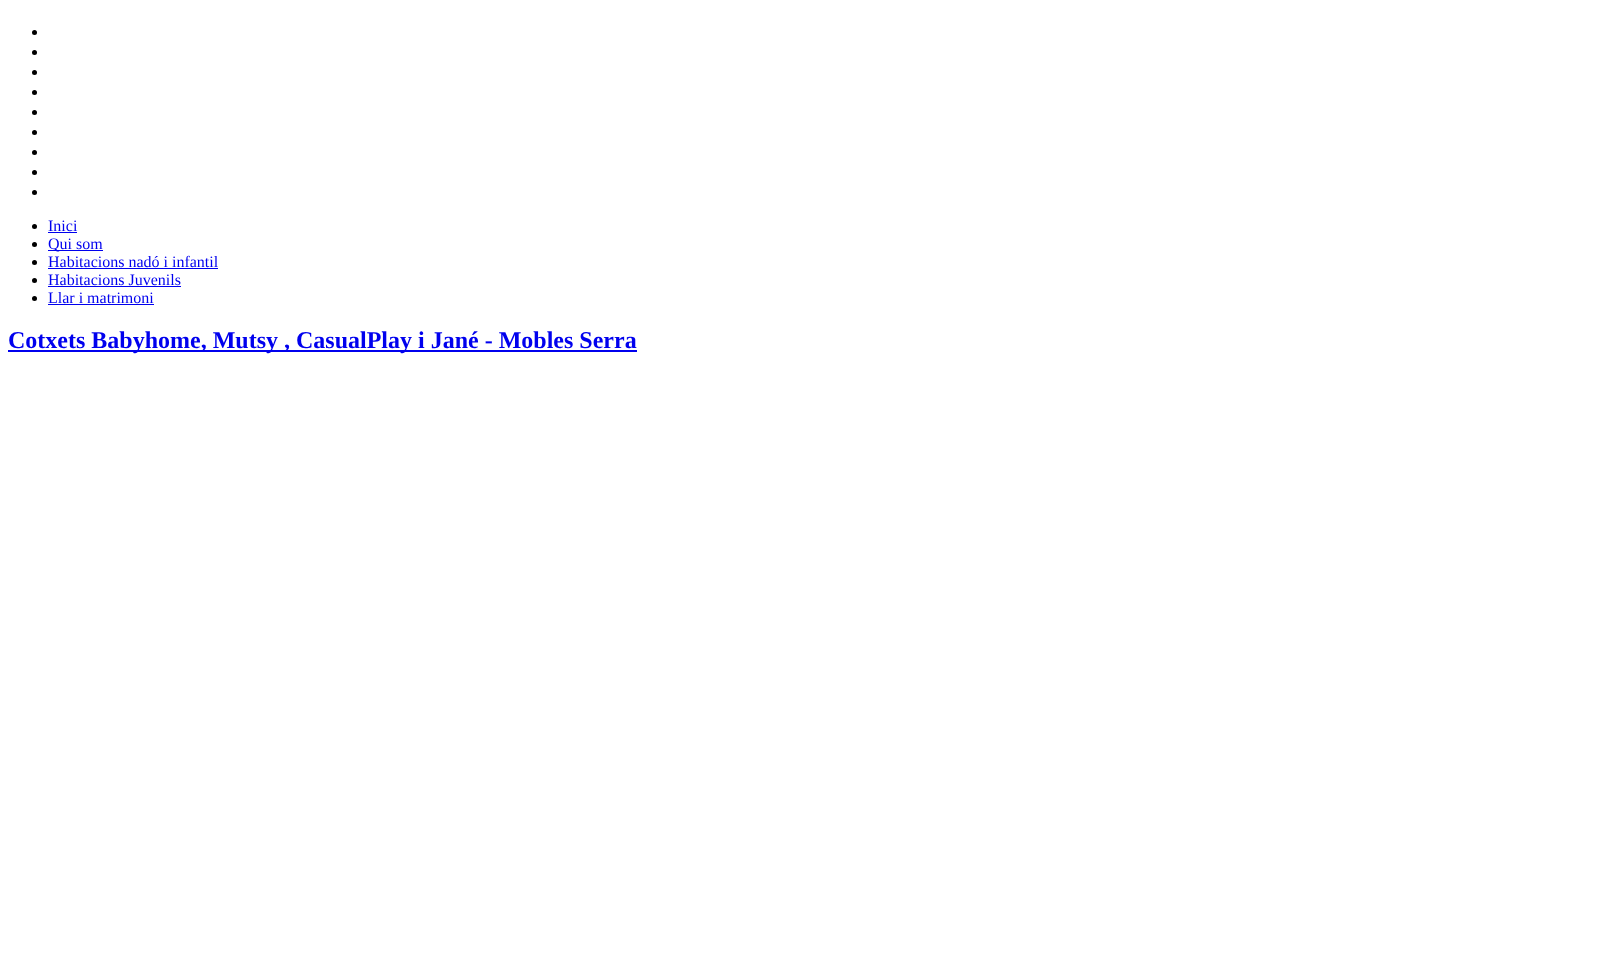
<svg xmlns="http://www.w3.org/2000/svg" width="1621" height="979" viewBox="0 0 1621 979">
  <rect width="100%" height="100%" fill="#ffffff"/>
  <circle cx="34.5" cy="32.5" r="2.5" fill="#000000"/>
  <circle cx="34.5" cy="52.5" r="2.5" fill="#000000"/>
  <circle cx="34.5" cy="72.5" r="2.5" fill="#000000"/>
  <circle cx="34.5" cy="92.5" r="2.5" fill="#000000"/>
  <circle cx="34.5" cy="112.5" r="2.5" fill="#000000"/>
  <circle cx="34.5" cy="132.5" r="2.5" fill="#000000"/>
  <circle cx="34.5" cy="152.5" r="2.5" fill="#000000"/>
  <circle cx="34.5" cy="172.5" r="2.5" fill="#000000"/>
  <circle cx="34.5" cy="192.5" r="2.5" fill="#000000"/>
  <circle cx="34.5" cy="226.5" r="2.5" fill="#000000"/>
  <text x="48" y="231" font-family="Liberation Serif" font-size="16" fill="#0000ee">Inici</text>
  <rect x="48" y="232" width="29" height="1" fill="#0000ee"/>
  <circle cx="34.5" cy="244.5" r="2.5" fill="#000000"/>
  <rect x="48" y="250" width="55" height="1" fill="#0000ee"/>
  <text x="48" y="249" font-family="Liberation Serif" font-size="16" fill="#0000ee">Qui som</text>
  <circle cx="34.5" cy="262.5" r="2.5" fill="#000000"/>
  <text x="48" y="267" font-family="Liberation Serif" font-size="16" fill="#0000ee">Habitacions nadó i infantil</text>
  <rect x="48" y="268" width="170" height="1" fill="#0000ee"/>
  <circle cx="34.5" cy="280.5" r="2.5" fill="#000000"/>
  <text x="48" y="285" font-family="Liberation Serif" font-size="16" fill="#0000ee">Habitacions Juvenils</text>
  <rect x="48" y="286" width="133" height="1" fill="#0000ee"/>
  <circle cx="34.5" cy="298.5" r="2.5" fill="#000000"/>
  <text x="48" y="303" font-family="Liberation Serif" font-size="16" fill="#0000ee">Llar i matrimoni</text>
  <rect x="48" y="304" width="106" height="1" fill="#0000ee"/>
  <rect x="8" y="350" width="629" height="2" fill="#0000ee"/>
  <text x="8" y="348" font-family="Liberation Serif" font-size="24" font-weight="bold" fill="#0000ee">Cotxets Babyhome, Mutsy , CasualPlay i Jané - Mobles Serra</text>
</svg>
